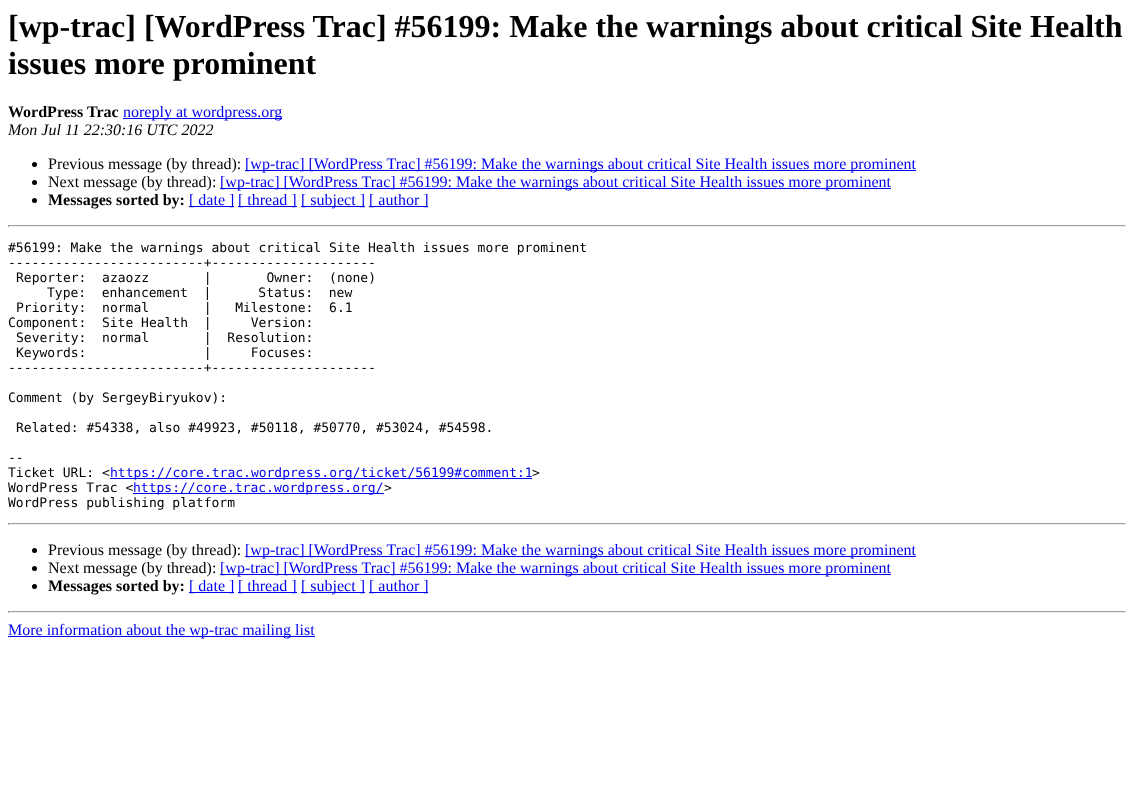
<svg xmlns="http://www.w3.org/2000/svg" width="1134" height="796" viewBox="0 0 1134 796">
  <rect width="100%" height="100%" fill="#ffffff"/>
  <text x="8" y="37" font-family="Liberation Serif" font-size="32" font-weight="bold" fill="#000000">[wp-trac] [WordPress Trac] #56199: Make the warnings about critical Site Health</text>
  <text x="8" y="74" font-family="Liberation Serif" font-size="32" font-weight="bold" fill="#000000">issues more prominent</text>
  <text x="8" y="117" font-family="Liberation Serif" font-size="16" font-weight="bold" fill="#000000">WordPress Trac</text>
  <rect x="123" y="118" width="159" height="1" fill="#0000ee"/>
  <text x="123" y="117" font-family="Liberation Serif" font-size="16" fill="#0000ee">noreply at wordpress.org</text>
  <text x="8" y="135" font-family="Liberation Serif" font-size="16" font-style="italic" fill="#000000">Mon Jul 11 22:30:16 UTC 2022</text>
  <circle cx="34.5" cy="164.5" r="2.5" fill="#000000"/>
  <text x="48" y="169" font-family="Liberation Serif" font-size="16" fill="#000000">Previous message (by thread):</text>
  <rect x="245" y="170" width="671" height="1" fill="#0000ee"/>
  <text x="245" y="169" font-family="Liberation Serif" font-size="16" fill="#0000ee">[wp-trac] [WordPress Trac] #56199: Make the warnings about critical Site Health issues more prominent</text>
  <circle cx="34.5" cy="182.5" r="2.5" fill="#000000"/>
  <text x="48" y="187" font-family="Liberation Serif" font-size="16" fill="#000000">Next message (by thread):</text>
  <rect x="220" y="188" width="671" height="1" fill="#0000ee"/>
  <text x="220" y="187" font-family="Liberation Serif" font-size="16" fill="#0000ee">[wp-trac] [WordPress Trac] #56199: Make the warnings about critical Site Health issues more prominent</text>
  <circle cx="34.5" cy="200.5" r="2.5" fill="#000000"/>
  <text x="48" y="205" font-family="Liberation Serif" font-size="16" font-weight="bold" fill="#000000">Messages sorted by:</text>
  <rect x="189" y="206" width="45" height="1" fill="#0000ee"/>
  <text x="189" y="205" font-family="Liberation Serif" font-size="16" fill="#0000ee">[ date ]</text>
  <rect x="238" y="206" width="59" height="1" fill="#0000ee"/>
  <text x="238" y="205" font-family="Liberation Serif" font-size="16" fill="#0000ee">[ thread ]</text>
  <rect x="301" y="206" width="64" height="1" fill="#0000ee"/>
  <text x="301" y="205" font-family="Liberation Serif" font-size="16" fill="#0000ee">[ subject ]</text>
  <rect x="369" y="206" width="59" height="1" fill="#0000ee"/>
  <text x="369" y="205" font-family="Liberation Serif" font-size="16" fill="#0000ee">[ author ]</text>
  <rect x="8" y="225" width="1118" height="1" fill="#9f9f9f"/>
  <rect x="1125" y="225" width="1" height="2" fill="#eeeeee"/>
  <rect x="8" y="226" width="1118" height="1" fill="#eeeeee"/>
  <rect x="8" y="225" width="1" height="2" fill="#9f9f9f"/>
  <text x="8" y="252" font-family="DejaVu Sans Mono" font-size="13" fill="#000000">#56199: Make the warnings about critical Site Health issues more prominent</text>
  <text x="8" y="267" font-family="DejaVu Sans Mono" font-size="13" fill="#000000">-------------------------+---------------------</text>
  <text x="16" y="282" font-family="DejaVu Sans Mono" font-size="13" fill="#000000" xml:space="preserve">Reporter:  azaozz       |       Owner:  (none)</text>
  <text x="47" y="297" font-family="DejaVu Sans Mono" font-size="13" fill="#000000" xml:space="preserve">Type:  enhancement  |      Status:  new</text>
  <text x="16" y="312" font-family="DejaVu Sans Mono" font-size="13" fill="#000000" xml:space="preserve">Priority:  normal       |   Milestone:  6.1</text>
  <text x="8" y="327" font-family="DejaVu Sans Mono" font-size="13" fill="#000000" xml:space="preserve">Component:  Site Health  |     Version:</text>
  <text x="16" y="342" font-family="DejaVu Sans Mono" font-size="13" fill="#000000" xml:space="preserve">Severity:  normal       |  Resolution:</text>
  <text x="16" y="357" font-family="DejaVu Sans Mono" font-size="13" fill="#000000" xml:space="preserve">Keywords:               |     Focuses:</text>
  <text x="8" y="372" font-family="DejaVu Sans Mono" font-size="13" fill="#000000">-------------------------+---------------------</text>
  <text x="8" y="402" font-family="DejaVu Sans Mono" font-size="13" fill="#000000">Comment (by SergeyBiryukov):</text>
  <text x="16" y="432" font-family="DejaVu Sans Mono" font-size="13" fill="#000000">Related: #54338, also #49923, #50118, #50770, #53024, #54598.</text>
  <text x="8" y="462" font-family="DejaVu Sans Mono" font-size="13" fill="#000000">--</text>
  <text x="8" y="477" font-family="DejaVu Sans Mono" font-size="13" fill="#000000">Ticket URL: &lt;</text>
  <rect x="110" y="478" width="422" height="1" fill="#0000ee"/>
  <text x="110" y="477" font-family="DejaVu Sans Mono" font-size="13" fill="#0000ee">https://core.trac.wordpress.org/ticket/56199#comment:1</text>
  <text x="532" y="477" font-family="DejaVu Sans Mono" font-size="13" fill="#000000">&gt;</text>
  <text x="8" y="492" font-family="DejaVu Sans Mono" font-size="13" fill="#000000">WordPress Trac &lt;</text>
  <rect x="133" y="493" width="251" height="1" fill="#0000ee"/>
  <text x="133" y="492" font-family="DejaVu Sans Mono" font-size="13" fill="#0000ee">https://core.trac.wordpress.org/</text>
  <text x="384" y="492" font-family="DejaVu Sans Mono" font-size="13" fill="#000000">&gt;</text>
  <text x="8" y="507" font-family="DejaVu Sans Mono" font-size="13" fill="#000000">WordPress publishing platform</text>
  <rect x="8" y="523" width="1118" height="1" fill="#9f9f9f"/>
  <rect x="1125" y="523" width="1" height="2" fill="#eeeeee"/>
  <rect x="8" y="524" width="1118" height="1" fill="#eeeeee"/>
  <rect x="8" y="523" width="1" height="2" fill="#9f9f9f"/>
  <circle cx="34.5" cy="550.5" r="2.5" fill="#000000"/>
  <text x="48" y="555" font-family="Liberation Serif" font-size="16" fill="#000000">Previous message (by thread):</text>
  <rect x="245" y="556" width="671" height="1" fill="#0000ee"/>
  <text x="245" y="555" font-family="Liberation Serif" font-size="16" fill="#0000ee">[wp-trac] [WordPress Trac] #56199: Make the warnings about critical Site Health issues more prominent</text>
  <circle cx="34.5" cy="568.5" r="2.5" fill="#000000"/>
  <text x="48" y="573" font-family="Liberation Serif" font-size="16" fill="#000000">Next message (by thread):</text>
  <rect x="220" y="574" width="671" height="1" fill="#0000ee"/>
  <text x="220" y="573" font-family="Liberation Serif" font-size="16" fill="#0000ee">[wp-trac] [WordPress Trac] #56199: Make the warnings about critical Site Health issues more prominent</text>
  <circle cx="34.5" cy="586.5" r="2.5" fill="#000000"/>
  <text x="48" y="591" font-family="Liberation Serif" font-size="16" font-weight="bold" fill="#000000">Messages sorted by:</text>
  <rect x="189" y="592" width="45" height="1" fill="#0000ee"/>
  <text x="189" y="591" font-family="Liberation Serif" font-size="16" fill="#0000ee">[ date ]</text>
  <rect x="238" y="592" width="59" height="1" fill="#0000ee"/>
  <text x="238" y="591" font-family="Liberation Serif" font-size="16" fill="#0000ee">[ thread ]</text>
  <rect x="301" y="592" width="64" height="1" fill="#0000ee"/>
  <text x="301" y="591" font-family="Liberation Serif" font-size="16" fill="#0000ee">[ subject ]</text>
  <rect x="369" y="592" width="59" height="1" fill="#0000ee"/>
  <text x="369" y="591" font-family="Liberation Serif" font-size="16" fill="#0000ee">[ author ]</text>
  <rect x="8" y="611" width="1118" height="1" fill="#9f9f9f"/>
  <rect x="1125" y="611" width="1" height="2" fill="#eeeeee"/>
  <rect x="8" y="612" width="1118" height="1" fill="#eeeeee"/>
  <rect x="8" y="611" width="1" height="2" fill="#9f9f9f"/>
  <rect x="8" y="636" width="307" height="1" fill="#0000ee"/>
  <text x="8" y="635" font-family="Liberation Serif" font-size="16" fill="#0000ee">More information about the wp-trac mailing list</text>
</svg>
